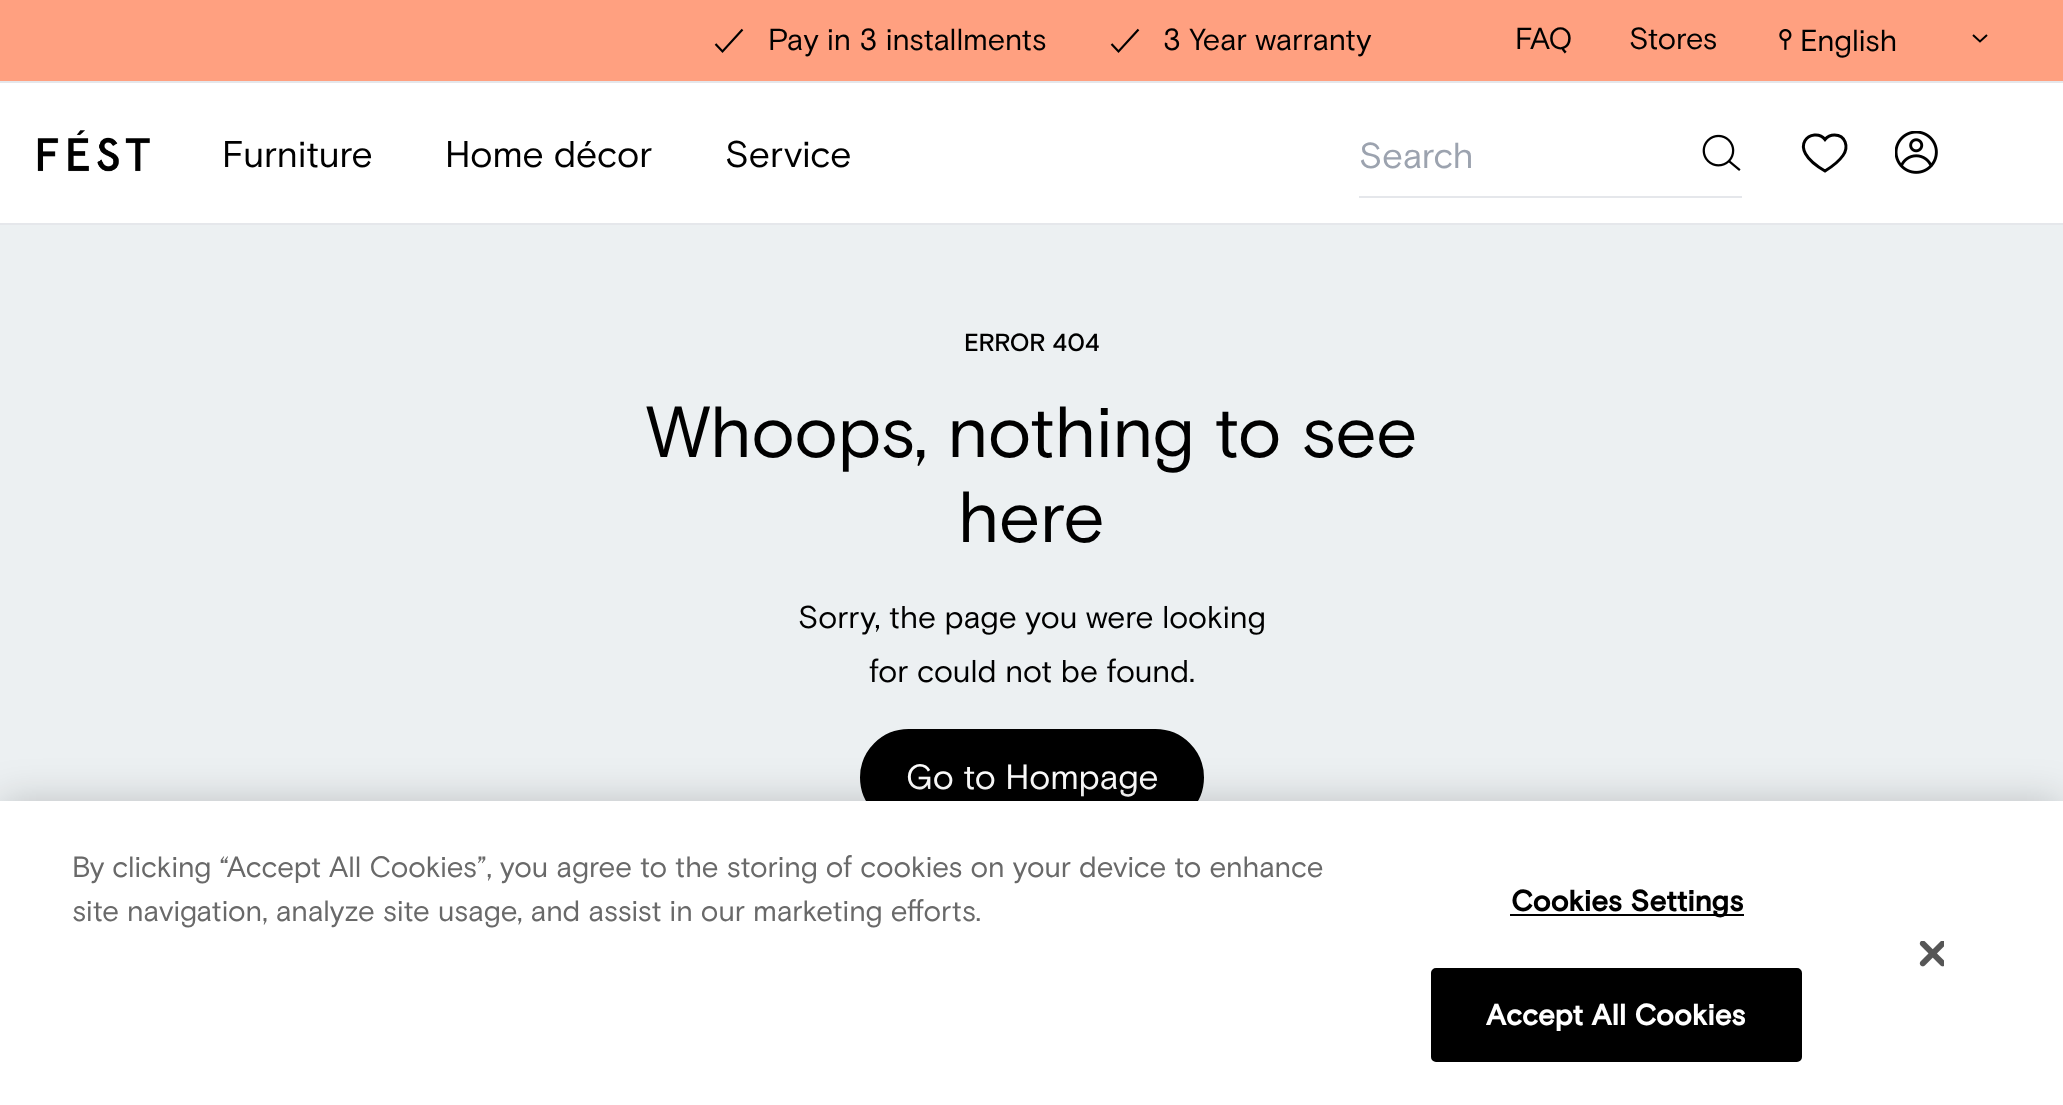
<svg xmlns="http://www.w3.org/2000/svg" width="2063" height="1105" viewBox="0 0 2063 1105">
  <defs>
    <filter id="blur1" x="-50%" y="-200%" width="200%" height="500%"><feGaussianBlur stdDeviation="20"/></filter>
  </defs>
  <rect width="100%" height="100%" fill="#ffffff"/>
  <rect x="0" y="0" width="2063" height="81" fill="#ffa080"/>
  <path d="M715.5 44L722.5 51.5L742.5 29.5" fill="none" stroke="#000000" stroke-width="2.2"/>
  <text x="768" y="50" font-family="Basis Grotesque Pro" font-size="30.4" fill="#000000">Pay in 3 installments</text>
  <path d="M1111.5 44L1118.5 51.5L1138.5 29.5" fill="none" stroke="#000000" stroke-width="2.2"/>
  <text x="1163" y="50" font-family="Basis Grotesque Pro" font-size="30.4" fill="#000000">3 Year warranty</text>
  <text x="1515" y="49" font-family="Basis Grotesque Pro" font-size="30.4" fill="#000000">FAQ</text>
  <text x="1629" y="49" font-family="Basis Grotesque Pro" font-size="30.4" fill="#000000">Stores</text>
  <image x="1779" y="29" width="13" height="21" href="img1.png"/>
  <text x="1800" y="51" font-family="Basis Grotesque Pro" font-size="30.4" fill="#000000">English</text>
  <path d="M1973 35L1980 41.5L1987 35" fill="none" stroke="#000000" stroke-width="2"/>
  <rect x="0" y="81" width="2063" height="2" fill="#e5e7eb"/>
  <rect x="0" y="223" width="2063" height="2" fill="#e5e7eb"/>
  <image x="37" y="130" width="113" height="42" href="img2.png"/>
  <text x="222" y="167" font-family="Basis Grotesque Pro" font-size="37" fill="#000000">Furniture</text>
  <text x="445" y="167" font-family="Basis Grotesque Pro" font-size="37" fill="#000000">Home décor</text>
  <text x="725" y="167" font-family="Basis Grotesque Pro" font-size="37" fill="#000000">Service</text>
  <rect x="1359" y="196" width="383" height="2" fill="#e5e7eb"/>
  <text x="1359" y="168" font-family="Basis Grotesque Pro" font-size="36" fill="#9ca3af">Search</text>
  <image x="1702" y="134" width="39" height="37" href="img3.png"/>
  <path d="M1834.5 135C1830.5 135 1827 137 1825 139.5C1814 125.5 1782.5 146.5 1825 171C1831.5 167 1838.5 162 1843 155.5C1849 147 1845.5 135 1834.5 135Z" fill="none" stroke="#000000" stroke-width="3"/>
  <image x="1895" y="131" width="43" height="43" href="img4.png"/>
  <rect x="0" y="225" width="2063" height="576" fill="#ecf0f2"/>
  <text x="964" y="351" font-family="Basis Grotesque Pro" font-size="24.75" font-weight="500" fill="#000000">ERROR 404</text>
  <text x="646" y="457" font-family="Basis Grotesque Pro" font-size="72" fill="#000000">Whoops, nothing to see</text>
  <text x="958" y="542" font-family="Basis Grotesque Pro" font-size="72" fill="#000000">here</text>
  <text x="798" y="628" font-family="Basis Grotesque Pro" font-size="31.5" fill="#000000">Sorry, the page you were looking</text>
  <text x="869" y="682" font-family="Basis Grotesque Pro" font-size="31.5" fill="#000000">for could not be found.</text>
  <rect x="861" y="730" width="342" height="95" rx="47.5" fill="#000000" stroke="#000000" stroke-width="2"/>
  <text x="906" y="789" font-family="Basis Grotesque Pro" font-size="35" fill="#ffffff">Go to Hompage</text>
  <rect x="0" y="801" width="2063" height="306" fill="#000000" fill-opacity="0.2" filter="url(#blur1)"/>
  <rect x="0" y="801" width="2063" height="304" fill="#ffffff"/>
  <text x="72" y="877" font-family="Basis Grotesque Pro" font-size="29.25" fill="#696969">By clicking “Accept All Cookies”, you agree to the storing of cookies on your device to enhance</text>
  <text x="72" y="921" font-family="Basis Grotesque Pro" font-size="29.25" fill="#696969">site navigation, analyze site usage, and assist in our marketing efforts.</text>
  <rect x="1510" y="914" width="234" height="2" fill="#000000"/>
  <text x="1511" y="911" font-family="Basis Grotesque Pro" font-size="29.25" font-weight="bold" letter-spacing="0.25" fill="#000000">Cookies Settings</text>
  <rect x="1432" y="969" width="369" height="92" rx="4" fill="#000000" stroke="#000000" stroke-width="2"/>
  <text x="1486" y="1025" font-family="Basis Grotesque Pro" font-size="29.25" font-weight="bold" letter-spacing="0.25" fill="#ffffff">Accept All Cookies</text>
  <image x="1919" y="941" width="25" height="26" href="img5.png"/>
</svg>
